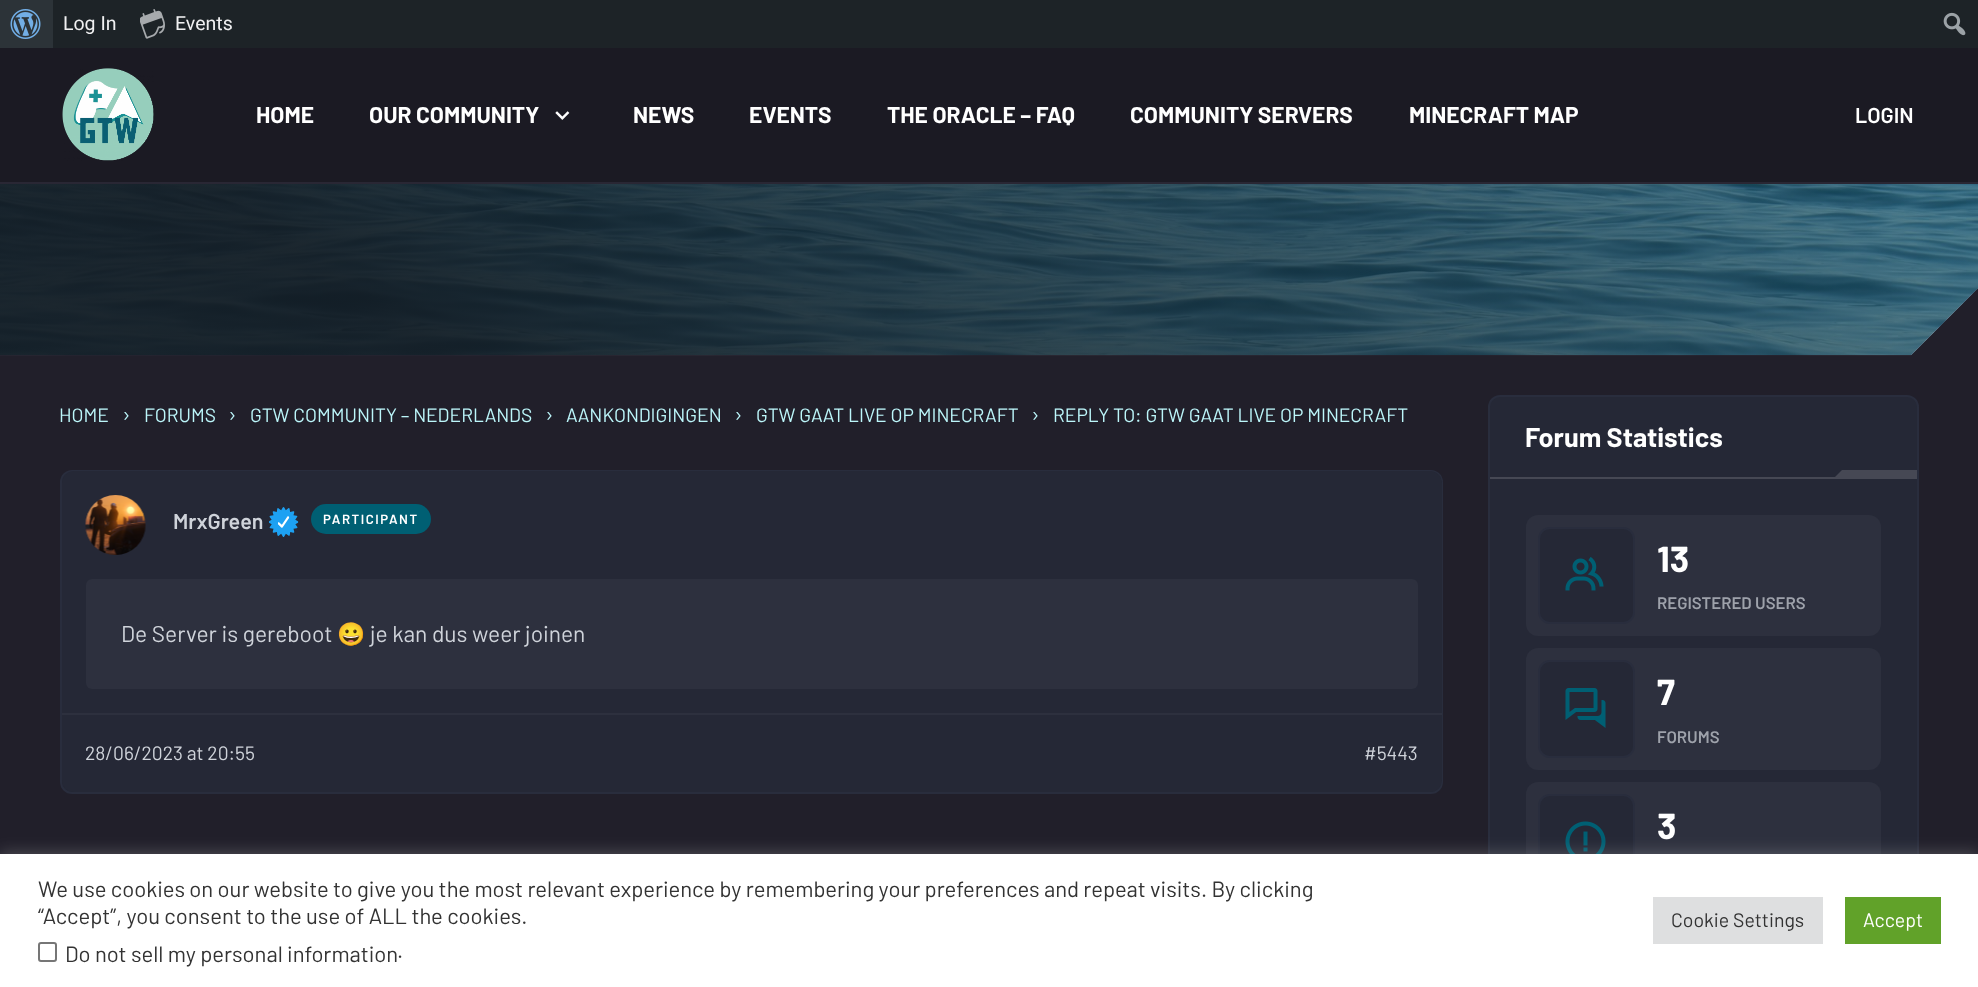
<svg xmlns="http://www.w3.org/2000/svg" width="1978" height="987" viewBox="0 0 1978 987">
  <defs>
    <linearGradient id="g1" gradientUnits="userSpaceOnUse" x1="623" y1="792" x2="1355" y2="-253"><stop offset="0.2" stop-color="#14171d" stop-opacity="0.85"/><stop offset="1" stop-color="#1e2127" stop-opacity="0.15"/></linearGradient>
    <filter id="blur1" x="-50%" y="-200%" width="200%" height="500%"><feGaussianBlur stdDeviation="7.5"/></filter>
  </defs>
  <rect width="100%" height="100%" fill="#211f2a"/>
  <rect x="53" y="0" width="1925" height="48" fill="#1d2327"/>
  <rect x="0" y="0" width="53" height="48" fill="#2c3338"/>
  <image x="10" y="9" width="31" height="30" href="img1.png"/>
  <text x="63" y="30" font-family="Roboto" font-size="19.5" fill="#f0f0f1">Log In</text>
  <image x="140" y="9" width="25" height="30" href="img2.png"/>
  <text x="175" y="30" font-family="Roboto" font-size="19.5" fill="#f0f0f1">Events</text>
  <image x="1943" y="12" width="23" height="24" href="img3.png"/>
  <rect x="0" y="48" width="1978" height="134" fill="#1b1a23"/>
  <image x="0" y="184" width="1978" height="172" href="img6.png"/>
  <path d="M0 183V355H1911L1978 288V183Z" fill="#005f73" fill-opacity="0.56"/>
  <path d="M0 183V355H1911L1978 288V183Z" fill="url(#g1)"/>
  <rect x="0" y="182" width="1978" height="2" fill="#292734"/>
  <image x="62" y="68" width="92" height="93" href="img4.png"/>
  <text x="256" y="123" font-family="Barlow" font-size="22.75" font-weight="bold" fill="#ffffff">HOME</text>
  <text x="369" y="123" font-family="Barlow" font-size="22.75" font-weight="bold" fill="#ffffff">OUR COMMUNITY</text>
  <image x="555" y="111" width="15" height="9" href="img5.png"/>
  <text x="633" y="123" font-family="Barlow" font-size="22.75" font-weight="bold" fill="#ffffff">NEWS</text>
  <text x="749" y="123" font-family="Barlow" font-size="22.75" font-weight="bold" fill="#ffffff">EVENTS</text>
  <text x="887" y="123" font-family="Barlow" font-size="22.75" font-weight="bold" fill="#ffffff">THE ORACLE – FAQ</text>
  <text x="1130" y="123" font-family="Barlow" font-size="22.75" font-weight="bold" fill="#ffffff">COMMUNITY SERVERS</text>
  <text x="1409" y="123" font-family="Barlow" font-size="22.75" font-weight="bold" fill="#ffffff">MINECRAFT MAP</text>
  <text x="1855" y="123" font-family="Barlow" font-size="21.5" font-weight="600" fill="#ffffff">LOGIN</text>
  <text x="59" y="422" font-family="Barlow" font-size="19.25" fill="#bcf6fa">HOME</text>
  <text x="122" y="422" font-family="Barlow" font-size="22" fill="#bcf6fa">›</text>
  <text x="144" y="422" font-family="Barlow" font-size="19.25" fill="#bcf6fa">FORUMS</text>
  <text x="228" y="422" font-family="Barlow" font-size="22" fill="#bcf6fa">›</text>
  <text x="250" y="422" font-family="Barlow" font-size="19.25" fill="#bcf6fa">GTW COMMUNITY – NEDERLANDS</text>
  <text x="545" y="422" font-family="Barlow" font-size="22" fill="#bcf6fa">›</text>
  <text x="566" y="422" font-family="Barlow" font-size="19.25" fill="#bcf6fa">AANKONDIGINGEN</text>
  <text x="734" y="422" font-family="Barlow" font-size="22" fill="#bcf6fa">›</text>
  <text x="756" y="422" font-family="Barlow" font-size="19.25" fill="#bcf6fa">GTW GAAT LIVE OP MINECRAFT</text>
  <text x="1031" y="422" font-family="Barlow" font-size="22" fill="#bcf6fa">›</text>
  <text x="1053" y="422" font-family="Barlow" font-size="19.25" fill="#bcf6fa">REPLY TO: GTW GAAT LIVE OP MINECRAFT</text>
  <rect x="61" y="471" width="1381" height="322" rx="11" fill="#252836" stroke="#292d3d" stroke-width="2"/>
  <rect x="62" y="471" width="1380" height="321" rx="12" fill="#252836"/>
  <image x="85" y="495" width="61" height="60" href="img7.png"/>
  <text x="173" y="529" font-family="Barlow" font-size="21.5" font-weight="600" fill="#cfd3da">MrxGreen</text>
  <image x="269" y="507" width="30" height="30" href="img8.png"/>
  <rect x="311" y="504" width="120" height="30" rx="15" fill="#005f73"/>
  <text x="323" y="524" font-family="Barlow" font-size="13.25" font-weight="600" letter-spacing="1.5" fill="#ffffff">PARTICIPANT</text>
  <rect x="86" y="579" width="1332" height="110" rx="6" fill="#2d303e"/>
  <text x="121" y="642" font-family="Barlow" font-size="22.75" fill="#cfd3da">De Server is gereboot</text>
  <text x="337" y="642" font-family="Noto Color Emoji" font-size="22.75" fill="#cfd3da">😀</text>
  <text x="370" y="642" font-family="Barlow" font-size="22.75" fill="#cfd3da">je kan dus weer joinen</text>
  <rect x="62" y="713" width="1380" height="2" fill="#2d303e"/>
  <text x="85" y="760" font-family="Barlow" font-size="19.25" fill="#cfd3da">28/06/2023 at 20:55</text>
  <text x="1364" y="760" font-family="Barlow" font-size="19.25" fill="#cfd3da">#5443</text>
  <rect x="1489" y="396" width="429" height="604" rx="11" fill="#252836" stroke="#292d3d" stroke-width="2"/>
  <text x="1525" y="447" font-family="Barlow" font-size="27" font-weight="bold" fill="#ffffff">Forum Statistics</text>
  <path d="M1917 477V470H1842L1835 477Z" fill="#464854"/>
  <rect x="1490" y="477" width="427" height="2" fill="#464854"/>
  <rect x="1526" y="515" width="355" height="121" rx="12" fill="#2d303e"/>
  <rect x="1539" y="528" width="95" height="95" rx="11" fill="#252836" stroke="#292d3d" stroke-width="2"/>
  <image x="1565" y="557" width="39" height="34" href="img9.png"/>
  <text x="1657" y="572" font-family="Barlow" font-size="36" font-weight="bold" fill="#ffffff">13</text>
  <text x="1657" y="609" font-family="Barlow" font-size="16.75" font-weight="600" fill="#9ea2ab">REGISTERED USERS</text>
  <rect x="1526" y="648" width="355" height="122" rx="12" fill="#2d303e"/>
  <rect x="1539" y="661" width="95" height="96" rx="11" fill="#252836" stroke="#292d3d" stroke-width="2"/>
  <image x="1565" y="688" width="41" height="40" href="img10.png"/>
  <text x="1657" y="705" font-family="Barlow" font-size="36" font-weight="bold" fill="#ffffff">7</text>
  <text x="1657" y="743" font-family="Barlow" font-size="16.75" font-weight="600" fill="#9ea2ab">FORUMS</text>
  <rect x="1526" y="782" width="355" height="121" rx="12" fill="#2d303e"/>
  <rect x="1539" y="795" width="95" height="95" rx="11" fill="#252836" stroke="#292d3d" stroke-width="2"/>
  <image x="1565" y="821" width="41" height="33" href="img11.png"/>
  <text x="1657" y="839" font-family="Barlow" font-size="36" font-weight="bold" fill="#ffffff">3</text>
  <rect x="0" y="852" width="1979" height="134" fill="#acabab" fill-opacity="0.3" filter="url(#blur1)"/>
  <rect x="0" y="854" width="1978" height="133" fill="#ffffff"/>
  <text x="38" y="897" font-family="Barlow" font-size="22" fill="#333333">We use cookies on our website to give you the most relevant experience by remembering your preferences and repeat visits. By clicking</text>
  <text x="38" y="924" font-family="Barlow" font-size="22" fill="#333333">“Accept”, you consent to the use of ALL the cookies.</text>
  <rect x="39" y="943" width="17" height="18" rx="2" fill="none" stroke="#767676" stroke-width="2"/>
  <text x="65" y="962" font-family="Barlow" font-size="22" fill="#333333">Do not sell my personal information</text>
  <text x="397" y="958" font-family="Barlow" font-size="22" fill="#333333">.</text>
  <rect x="1653" y="897" width="170" height="47" fill="#dedfe0"/>
  <text x="1671" y="927" font-family="Barlow" font-size="19.5" fill="#333333">Cookie Settings</text>
  <rect x="1845" y="897" width="96" height="47" fill="#61a229"/>
  <text x="1863" y="927" font-family="Barlow" font-size="19.5" fill="#ffffff">Accept</text>
</svg>
